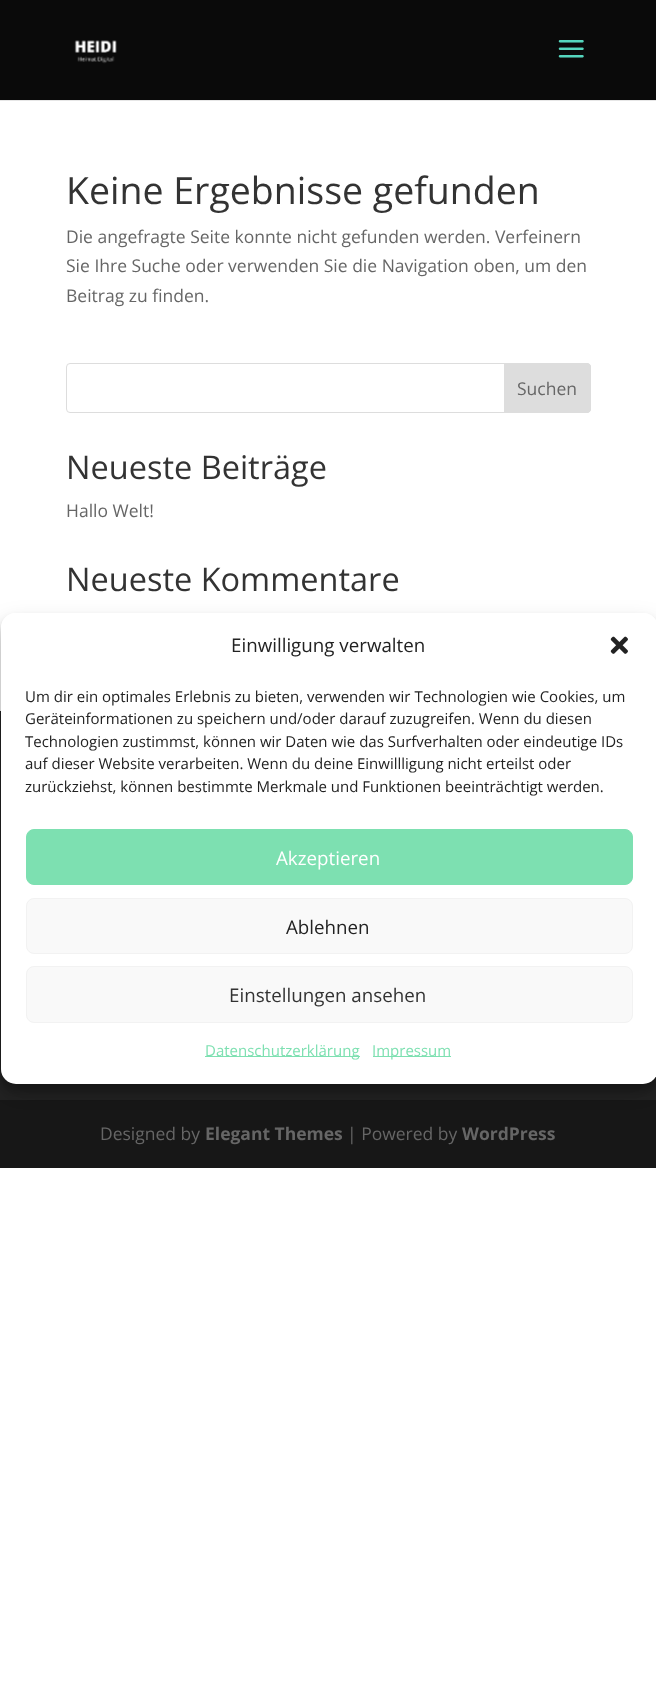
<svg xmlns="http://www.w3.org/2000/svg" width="656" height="1696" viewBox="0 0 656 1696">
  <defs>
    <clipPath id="clip1"><path d="M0 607H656V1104H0ZM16 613H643C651.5 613 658 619.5 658 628V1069C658 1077.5 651.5 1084 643 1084H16C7.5 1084 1 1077.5 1 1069V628C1 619.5 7.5 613 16 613Z" clip-rule="evenodd"/></clipPath>
    <filter id="blur1" x="-50%" y="-200%" width="200%" height="500%"><feGaussianBlur stdDeviation="4"/></filter>
    <clipPath id="clip2"><path d="M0 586H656V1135H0ZM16 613H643C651.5 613 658 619.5 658 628V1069C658 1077.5 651.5 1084 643 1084H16C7.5 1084 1 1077.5 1 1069V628C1 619.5 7.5 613 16 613Z" clip-rule="evenodd"/></clipPath>
    <filter id="blur2" x="-50%" y="-200%" width="200%" height="500%"><feGaussianBlur stdDeviation="12.5"/></filter>
  </defs>
  <rect width="100%" height="100%" fill="#ffffff"/>
  <rect x="0" y="100" width="656" height="1" fill="#e6e6e6"/>
  <rect x="0" y="0" width="656" height="100" fill="#0a0a0a"/>
  <image x="74" y="40" width="43" height="24" href="img1.png"/>
  <image x="558" y="40" width="26" height="18" href="img2.png"/>
  <text x="66" y="204" font-family="Open Sans" font-size="37.5" fill="#333333">Keine Ergebnisse gefunden</text>
  <text x="66" y="243" font-family="Open Sans" font-size="17.5" fill="#666666">Die angefragte Seite konnte nicht gefunden werden. Verfeinern</text>
  <text x="66" y="272" font-family="Open Sans" font-size="17.5" fill="#666666">Sie Ihre Suche oder verwenden Sie die Navigation oben, um den</text>
  <text x="66" y="302" font-family="Open Sans" font-size="17.5" fill="#666666">Beitrag zu finden.</text>
  <rect x="66.5" y="363.5" width="524" height="49" rx="3.5" fill="none" stroke="#dddddd"/>
  <path d="M504.5 363.5H587C589 363.5 590.5 365 590.5 367V409C590.5 411 589 412.5 587 412.5H504.5Z" fill="#dddddd" stroke="#dddddd"/>
  <text x="517" y="395" font-family="Open Sans" font-size="17.5" fill="#666666">Suchen</text>
  <text x="66" y="479" font-family="Open Sans" font-size="32.5" fill="#333333">Neueste Beiträge</text>
  <text x="66" y="517" font-family="Open Sans" font-size="17.5" fill="#666666">Hallo Welt!</text>
  <text x="66" y="591" font-family="Open Sans" font-size="32.5" fill="#333333">Neueste Kommentare</text>
  <rect x="0" y="711" width="656" height="389" fill="#222222"/>
  <rect x="0" y="1100" width="656" height="68" fill="#171717"/>
  <text x="100" y="1140" font-family="Open Sans" font-size="17.5" fill="#666666">Designed by</text>
  <text x="205" y="1140" font-family="Open Sans" font-size="17.5" font-weight="bold" fill="#666666">Elegant Themes</text>
  <text x="347" y="1140" font-family="Open Sans" font-size="17.5" fill="#666666">| Powered by</text>
  <text x="462" y="1140" font-family="Open Sans" font-size="17.5" font-weight="bold" fill="#666666">WordPress</text>
  <g clip-path="url(#clip1)">
    <rect x="1" y="620" width="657" height="471" rx="15" fill="#000000" fill-opacity="0.23" filter="url(#blur1)"/>
  </g>
  <g clip-path="url(#clip2)">
    <rect x="1" y="625" width="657" height="471" rx="15" fill="#000000" fill-opacity="0.19" filter="url(#blur2)"/>
  </g>
  <rect x="1" y="613" width="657" height="471" rx="15" fill="#ffffff"/>
  <text x="231" y="652" font-family="Open Sans" font-size="18.75" fill="#222222">Einwilligung verwalten</text>
  <image x="610" y="636" width="18" height="18" href="img3.png"/>
  <text x="25" y="702" font-family="Open Sans" font-size="15" fill="#222222">Um dir ein optimales Erlebnis zu bieten, verwenden wir Technologien wie Cookies, um</text>
  <text x="25" y="724" font-family="Open Sans" font-size="15" fill="#222222">Geräteinformationen zu speichern und/oder darauf zuzugreifen. Wenn du diesen</text>
  <text x="25" y="747" font-family="Open Sans" font-size="15" fill="#222222">Technologien zustimmst, können wir Daten wie das Surfverhalten oder eindeutige IDs</text>
  <text x="25" y="769" font-family="Open Sans" font-size="15" fill="#222222">auf dieser Website verarbeiten. Wenn du deine Einwillligung nicht erteilst oder</text>
  <text x="25" y="792" font-family="Open Sans" font-size="15" fill="#222222">zurückziehst, können bestimmte Merkmale und Funktionen beeinträchtigt werden.</text>
  <rect x="26.5" y="829.5" width="606" height="55" rx="7.5" fill="#7de0b1" stroke="#7de0b1"/>
  <text x="276" y="865" font-family="Open Sans" font-size="18.75" fill="#ffffff">Akzeptieren</text>
  <rect x="26.5" y="898.5" width="606" height="55" rx="7.5" fill="#f9f9f9" stroke="#f2f2f2"/>
  <text x="286" y="934" font-family="Open Sans" font-size="18.75" fill="#222222">Ablehnen</text>
  <rect x="26.5" y="966.5" width="606" height="56" rx="7.5" fill="#f9f9f9" stroke="#f2f2f2"/>
  <text x="229" y="1002" font-family="Open Sans" font-size="18.75" fill="#333333">Einstellungen ansehen</text>
  <rect x="205" y="1056" width="155" height="1" fill="#7de0b1"/>
  <text x="205" y="1056" font-family="Open Sans" font-size="15" fill="#7de0b1">Datenschutzerklärung</text>
  <rect x="373" y="1056" width="78" height="1" fill="#7de0b1"/>
  <text x="372" y="1056" font-family="Open Sans" font-size="15" fill="#7de0b1">Impressum</text>
</svg>
